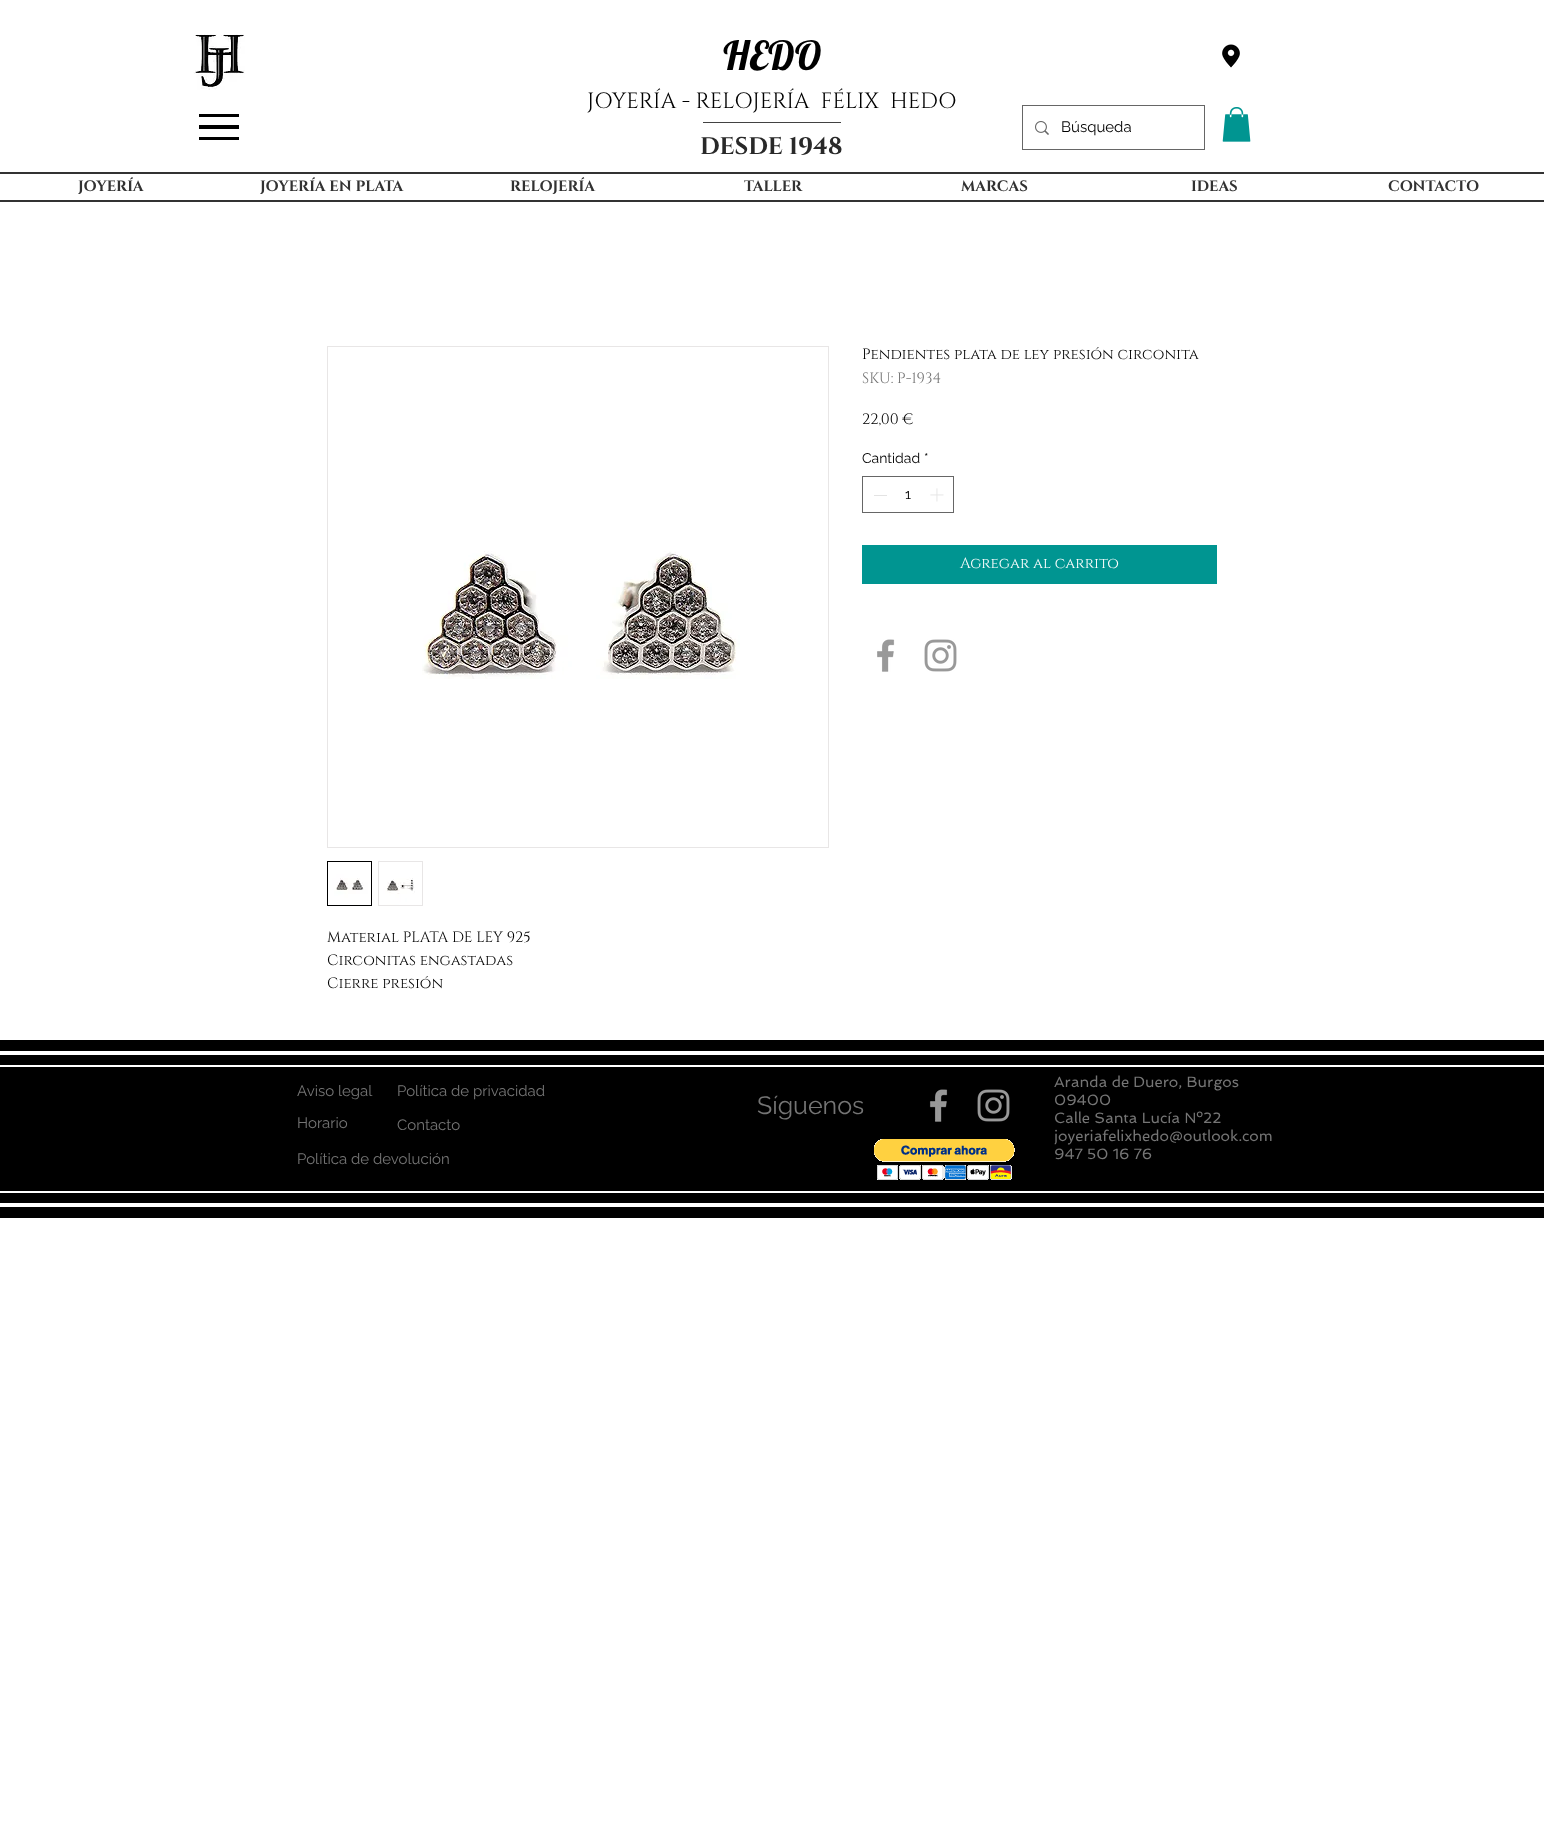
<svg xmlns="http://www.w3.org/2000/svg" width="1544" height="1836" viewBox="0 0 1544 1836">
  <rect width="100%" height="100%" fill="#ffffff"/>
  <image x="193" y="34" width="52" height="56" href="img1.png"/>
  <text x="723" y="70" font-family="Lobster" font-size="40" fill="#000000">HEDO</text>
  <image x="1222" y="44" width="18" height="24" href="img2.png"/>
  <text x="587" y="108" font-family="Cinzel" font-size="22" fill="#000000" xml:space="preserve">JOYERÍA - RELOJERÍA  FÉLIX  HEDO</text>
  <rect x="199" y="137" width="40" height="3" fill="#000000"/>
  <rect x="199" y="114" width="40" height="3" fill="#000000"/>
  <rect x="199" y="125" width="40" height="4" fill="#000000"/>
  <rect x="703" y="122" width="138" height="1" fill="#424242"/>
  <rect x="1022.5" y="105.5" width="182" height="44" fill="none" stroke="#666666"/>
  <image x="1035" y="121" width="14" height="14" href="img3.png"/>
  <text x="1061" y="132" font-family="Raleway" font-size="15" fill="#000000">Búsqueda</text>
  <image x="1222" y="107" width="29" height="35" href="img4.png"/>
  <text x="700" y="154" font-family="Cinzel" font-size="24" font-weight="bold" fill="#292929">DESDE 1948</text>
  <rect x="0" y="172" width="1544" height="2" fill="#323232"/>
  <rect x="0" y="200" width="1544" height="2" fill="#323232"/>
  <text x="78" y="191" font-family="Cinzel" font-size="15" font-weight="bold" fill="#323232">JOYERÍA</text>
  <text x="260" y="191" font-family="Cinzel" font-size="15" font-weight="bold" fill="#323232">JOYERÍA EN PLATA</text>
  <text x="510" y="191" font-family="Cinzel" font-size="15" font-weight="bold" fill="#323232">RELOJERÍA</text>
  <text x="744" y="191" font-family="Cinzel" font-size="15" font-weight="bold" fill="#323232">TALLER</text>
  <text x="961" y="191" font-family="Cinzel" font-size="15" font-weight="bold" fill="#323232">MARCAS</text>
  <text x="1191" y="191" font-family="Cinzel" font-size="15" font-weight="bold" fill="#323232">IDEAS</text>
  <text x="1388" y="191" font-family="Cinzel" font-size="15" font-weight="bold" fill="#323232">CONTACTO</text>
  <text x="862" y="359" font-family="Cinzel" font-size="15" fill="#000000">Pendientes plata de ley presión circonita</text>
  <text x="862" y="383" font-family="Cinzel" font-size="15" fill="#757575">SKU: P-1934</text>
  <text x="862" y="424" font-family="Cinzel" font-size="15" fill="#000000">22,00 €</text>
  <text x="862" y="463" font-family="Raleway" font-size="14" fill="#000000">Cantidad</text>
  <text x="924" y="463" font-family="Raleway" font-size="14" fill="#000000">*</text>
  <rect x="862.5" y="476.5" width="91" height="36" fill="none" stroke="#666666"/>
  <rect x="874" y="495" width="13" height="1" fill="#e3e3e3"/>
  <text x="905" y="499" font-family="Raleway" font-size="14" fill="#000000">1</text>
  <image x="930" y="488" width="14" height="14" href="img5.png"/>
  <rect x="862" y="545" width="355" height="39" fill="#009591"/>
  <text x="960" y="568" font-family="Cinzel" font-size="15" fill="#ffffff">Agregar al carrito</text>
  <rect x="327.5" y="346.5" width="501" height="501" fill="none" stroke="#e8e6e6"/>
  <image x="422" y="551" width="318" height="128" href="img6.png"/>
  <rect x="327.5" y="861.5" width="44" height="44" fill="none" stroke="#000000"/>
  <image x="328" y="862" width="43" height="43" href="img7.png"/>
  <rect x="378" y="861" width="45" height="45" fill="#e8e6e6"/>
  <image x="379" y="862" width="43" height="43" href="img8.png"/>
  <text x="327" y="942" font-family="Cinzel" font-size="15" fill="#000000">Material PLATA DE LEY 925</text>
  <text x="327" y="965" font-family="Cinzel" font-size="15" fill="#000000">Circonitas engastadas</text>
  <text x="327" y="988" font-family="Cinzel" font-size="15" fill="#000000">Cierre presión</text>
  <image x="877" y="639" width="18" height="33" href="img9.png"/>
  <image x="924" y="639" width="33" height="33" href="img10.png"/>
  <rect x="0" y="1040" width="1544" height="178" fill="#000000"/>
  <rect x="0" y="1051" width="1544" height="4" fill="#ffffff"/>
  <rect x="0" y="1203" width="1544" height="4" fill="#ffffff"/>
  <rect x="0" y="1065" width="1544" height="2" fill="#ffffff"/>
  <rect x="0" y="1191" width="1544" height="2" fill="#ffffff"/>
  <text x="297" y="1096" font-family="Raleway" font-size="15" fill="#757575">Aviso legal</text>
  <text x="397" y="1096" font-family="Raleway" font-size="15" fill="#757575">Política de privacidad</text>
  <text x="757" y="1114" font-family="Raleway" font-size="25" fill="#757575">Síguenos</text>
  <image x="929" y="1089" width="19" height="33" href="img11.png"/>
  <image x="977" y="1089" width="33" height="33" href="img12.png"/>
  <text x="1054" y="1087" font-family="Spinnaker" font-size="15" fill="#757575">Aranda de Duero, Burgos</text>
  <text x="1054" y="1105" font-family="Spinnaker" font-size="15" fill="#757575">09400</text>
  <text x="1054" y="1123" font-family="Spinnaker" font-size="15" fill="#757575">Calle Santa Lucía Nº22</text>
  <text x="1054" y="1141" font-family="Spinnaker" font-size="15" fill="#757575">joyeriafelixhedo@outlook.com</text>
  <text x="1054" y="1159" font-family="Spinnaker" font-size="15" fill="#757575">947 50 16 76</text>
  <text x="297" y="1128" font-family="Raleway" font-size="15" fill="#757575">Horario</text>
  <text x="397" y="1130" font-family="Raleway" font-size="15" fill="#757575">Contacto</text>
  <text x="297" y="1164" font-family="Raleway" font-size="15" fill="#757575">Política de devolución</text>
  <image x="874" y="1139" width="141" height="41" href="img13.png"/>
</svg>
